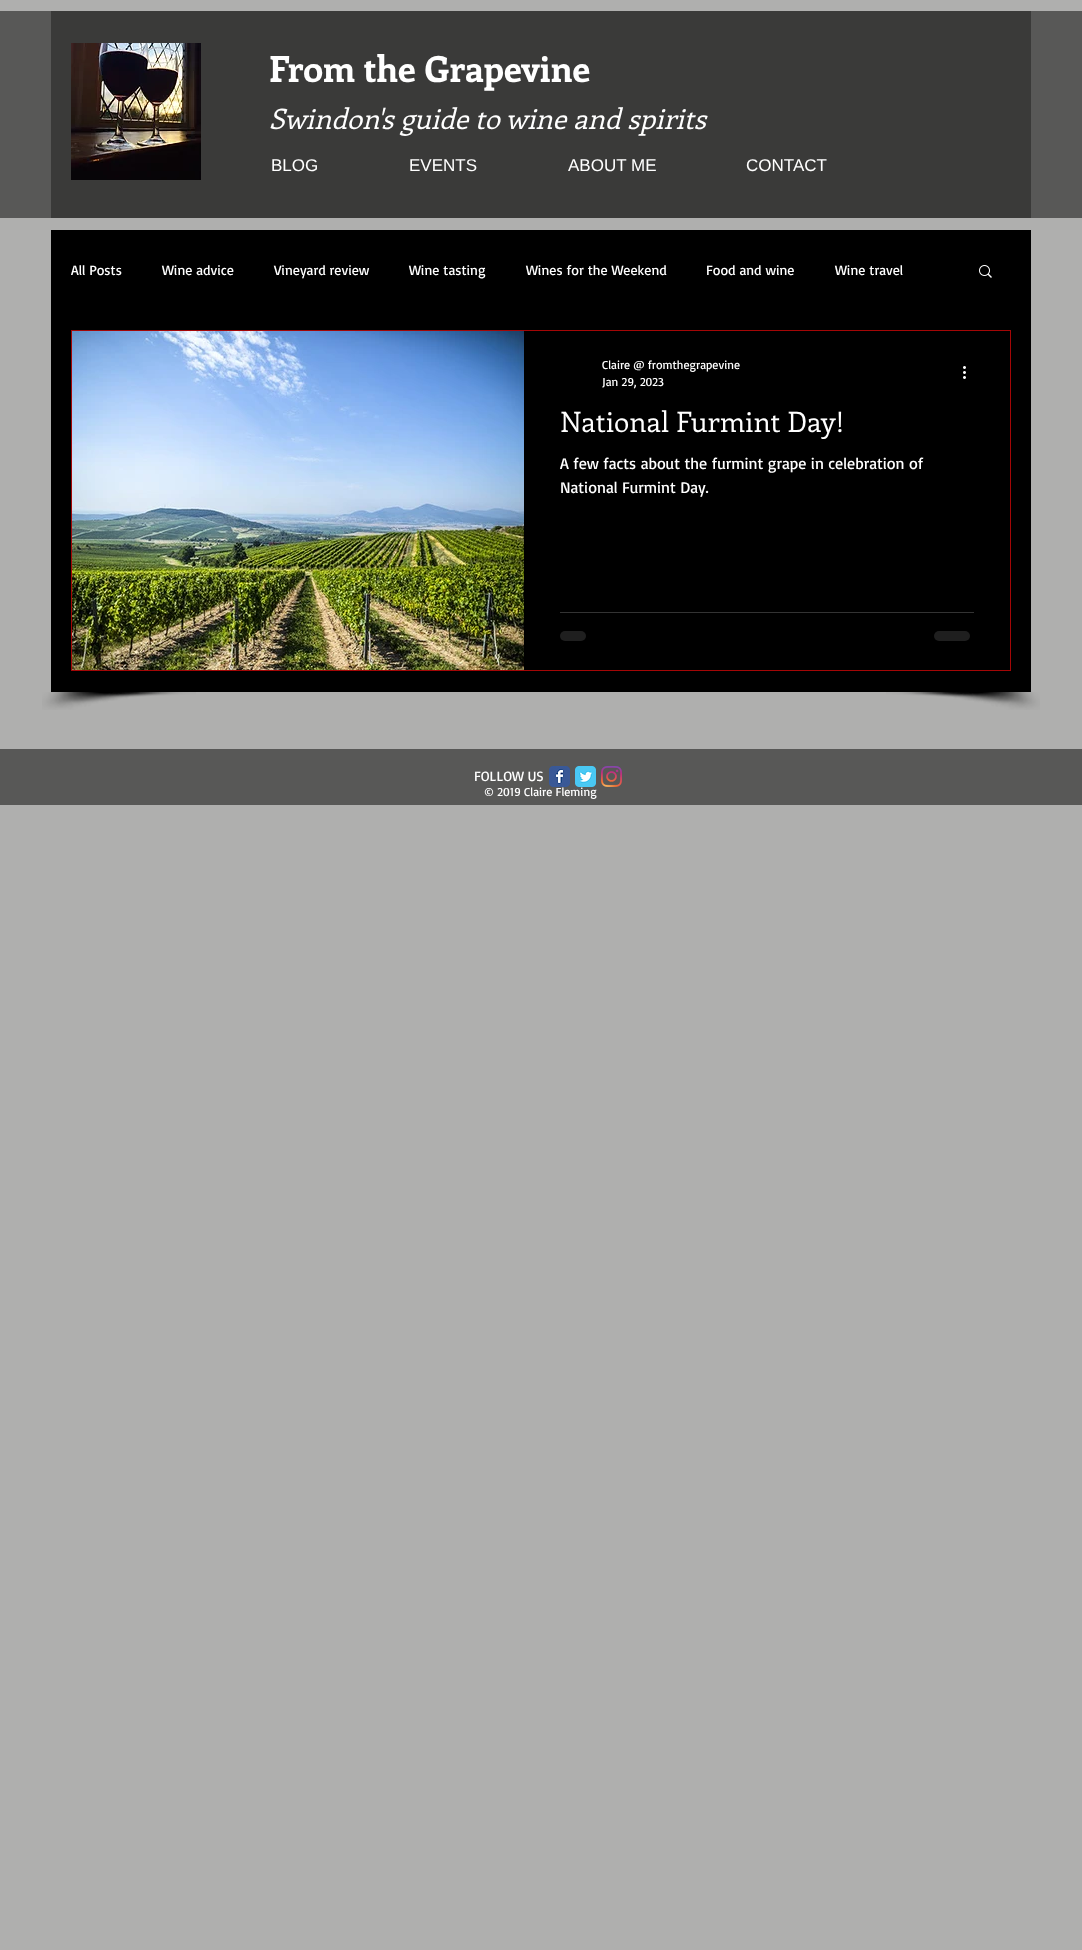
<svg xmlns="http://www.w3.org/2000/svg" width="1082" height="1950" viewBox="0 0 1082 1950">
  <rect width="100%" height="100%" fill="#afafae"/>
  <rect x="0" y="11" width="1082" height="207" fill="#585857"/>
  <rect x="51" y="11" width="980" height="207" fill="#3a3a39"/>
  <image x="71" y="43" width="130" height="137" href="img1.png"/>
  <text x="269" y="82" font-family="Enriqueta" font-size="36" font-weight="bold" fill="#ffffff">From the Grapevine</text>
  <text x="269" y="129" font-family="Enriqueta" font-size="28" font-style="italic" fill="#ffffff">Swindon's guide to wine and spirits</text>
  <text x="271" y="171" font-family="Liberation Sans" font-size="17" fill="#ffffff">BLOG</text>
  <text x="409" y="171" font-family="Liberation Sans" font-size="17" fill="#ffffff">EVENTS</text>
  <text x="568" y="171" font-family="Liberation Sans" font-size="17" fill="#ffffff">ABOUT ME</text>
  <text x="746" y="171" font-family="Liberation Sans" font-size="17" fill="#ffffff">CONTACT</text>
  <rect x="51" y="230" width="980" height="462" fill="#000000"/>
  <text x="71" y="275" font-family="Basic" font-size="14" fill="#ffffff">All Posts</text>
  <text x="162" y="275" font-family="Basic" font-size="14" fill="#ffffff">Wine advice</text>
  <text x="274" y="275" font-family="Basic" font-size="14" fill="#ffffff">Vineyard review</text>
  <text x="409" y="275" font-family="Basic" font-size="14" fill="#ffffff">Wine tasting</text>
  <text x="526" y="275" font-family="Basic" font-size="14" fill="#ffffff">Wines for the Weekend</text>
  <text x="706" y="275" font-family="Basic" font-size="14" fill="#ffffff">Food and wine</text>
  <text x="835" y="275" font-family="Basic" font-size="14" fill="#ffffff">Wine travel</text>
  <image x="979" y="265" width="13" height="13" href="img2.png"/>
  <rect x="71.5" y="330.5" width="939" height="340" fill="none" stroke="#a40606"/>
  <image x="72" y="331" width="452" height="339" href="img3.png"/>
  <text x="602" y="369" font-family="Basic" font-size="12" fill="#ffffff">Claire @ fromthegrapevine</text>
  <text x="602" y="386" font-family="Basic" font-size="12" fill="#ffffff">Jan 29, 2023</text>
  <image x="963" y="366" width="3" height="13" href="img4.png"/>
  <text x="560" y="432" font-family="Enriqueta" font-size="28" fill="#ffffff">National Furmint Day!</text>
  <text x="560" y="469" font-family="Basic" font-size="16" fill="#ffffff">A few facts about the furmint grape in celebration of</text>
  <text x="560" y="493" font-family="Basic" font-size="16" fill="#ffffff">National Furmint Day.</text>
  <rect x="560" y="612" width="414" height="1" fill="#333333"/>
  <rect x="560" y="631" width="26" height="10" rx="5" fill="#1f1f1f"/>
  <rect x="934" y="631" width="36" height="10" rx="5" fill="#1f1f1f"/>
  <image x="42" y="692" width="154" height="18" href="img5.png"/>
  <image x="886" y="692" width="154" height="18" href="img6.png"/>
  <rect x="0" y="749" width="1082" height="56" fill="#585857"/>
  <text x="474" y="781" font-family="Basic" font-size="14" fill="#ffffff">FOLLOW US</text>
  <image x="549" y="766" width="21" height="21" href="img7.png"/>
  <image x="575" y="766" width="21" height="21" href="img8.png"/>
  <image x="601" y="766" width="21" height="21" href="img9.png"/>
  <text x="484" y="796" font-family="Basic" font-size="12" fill="#ffffff">© 2019 Claire Fleming</text>
</svg>
